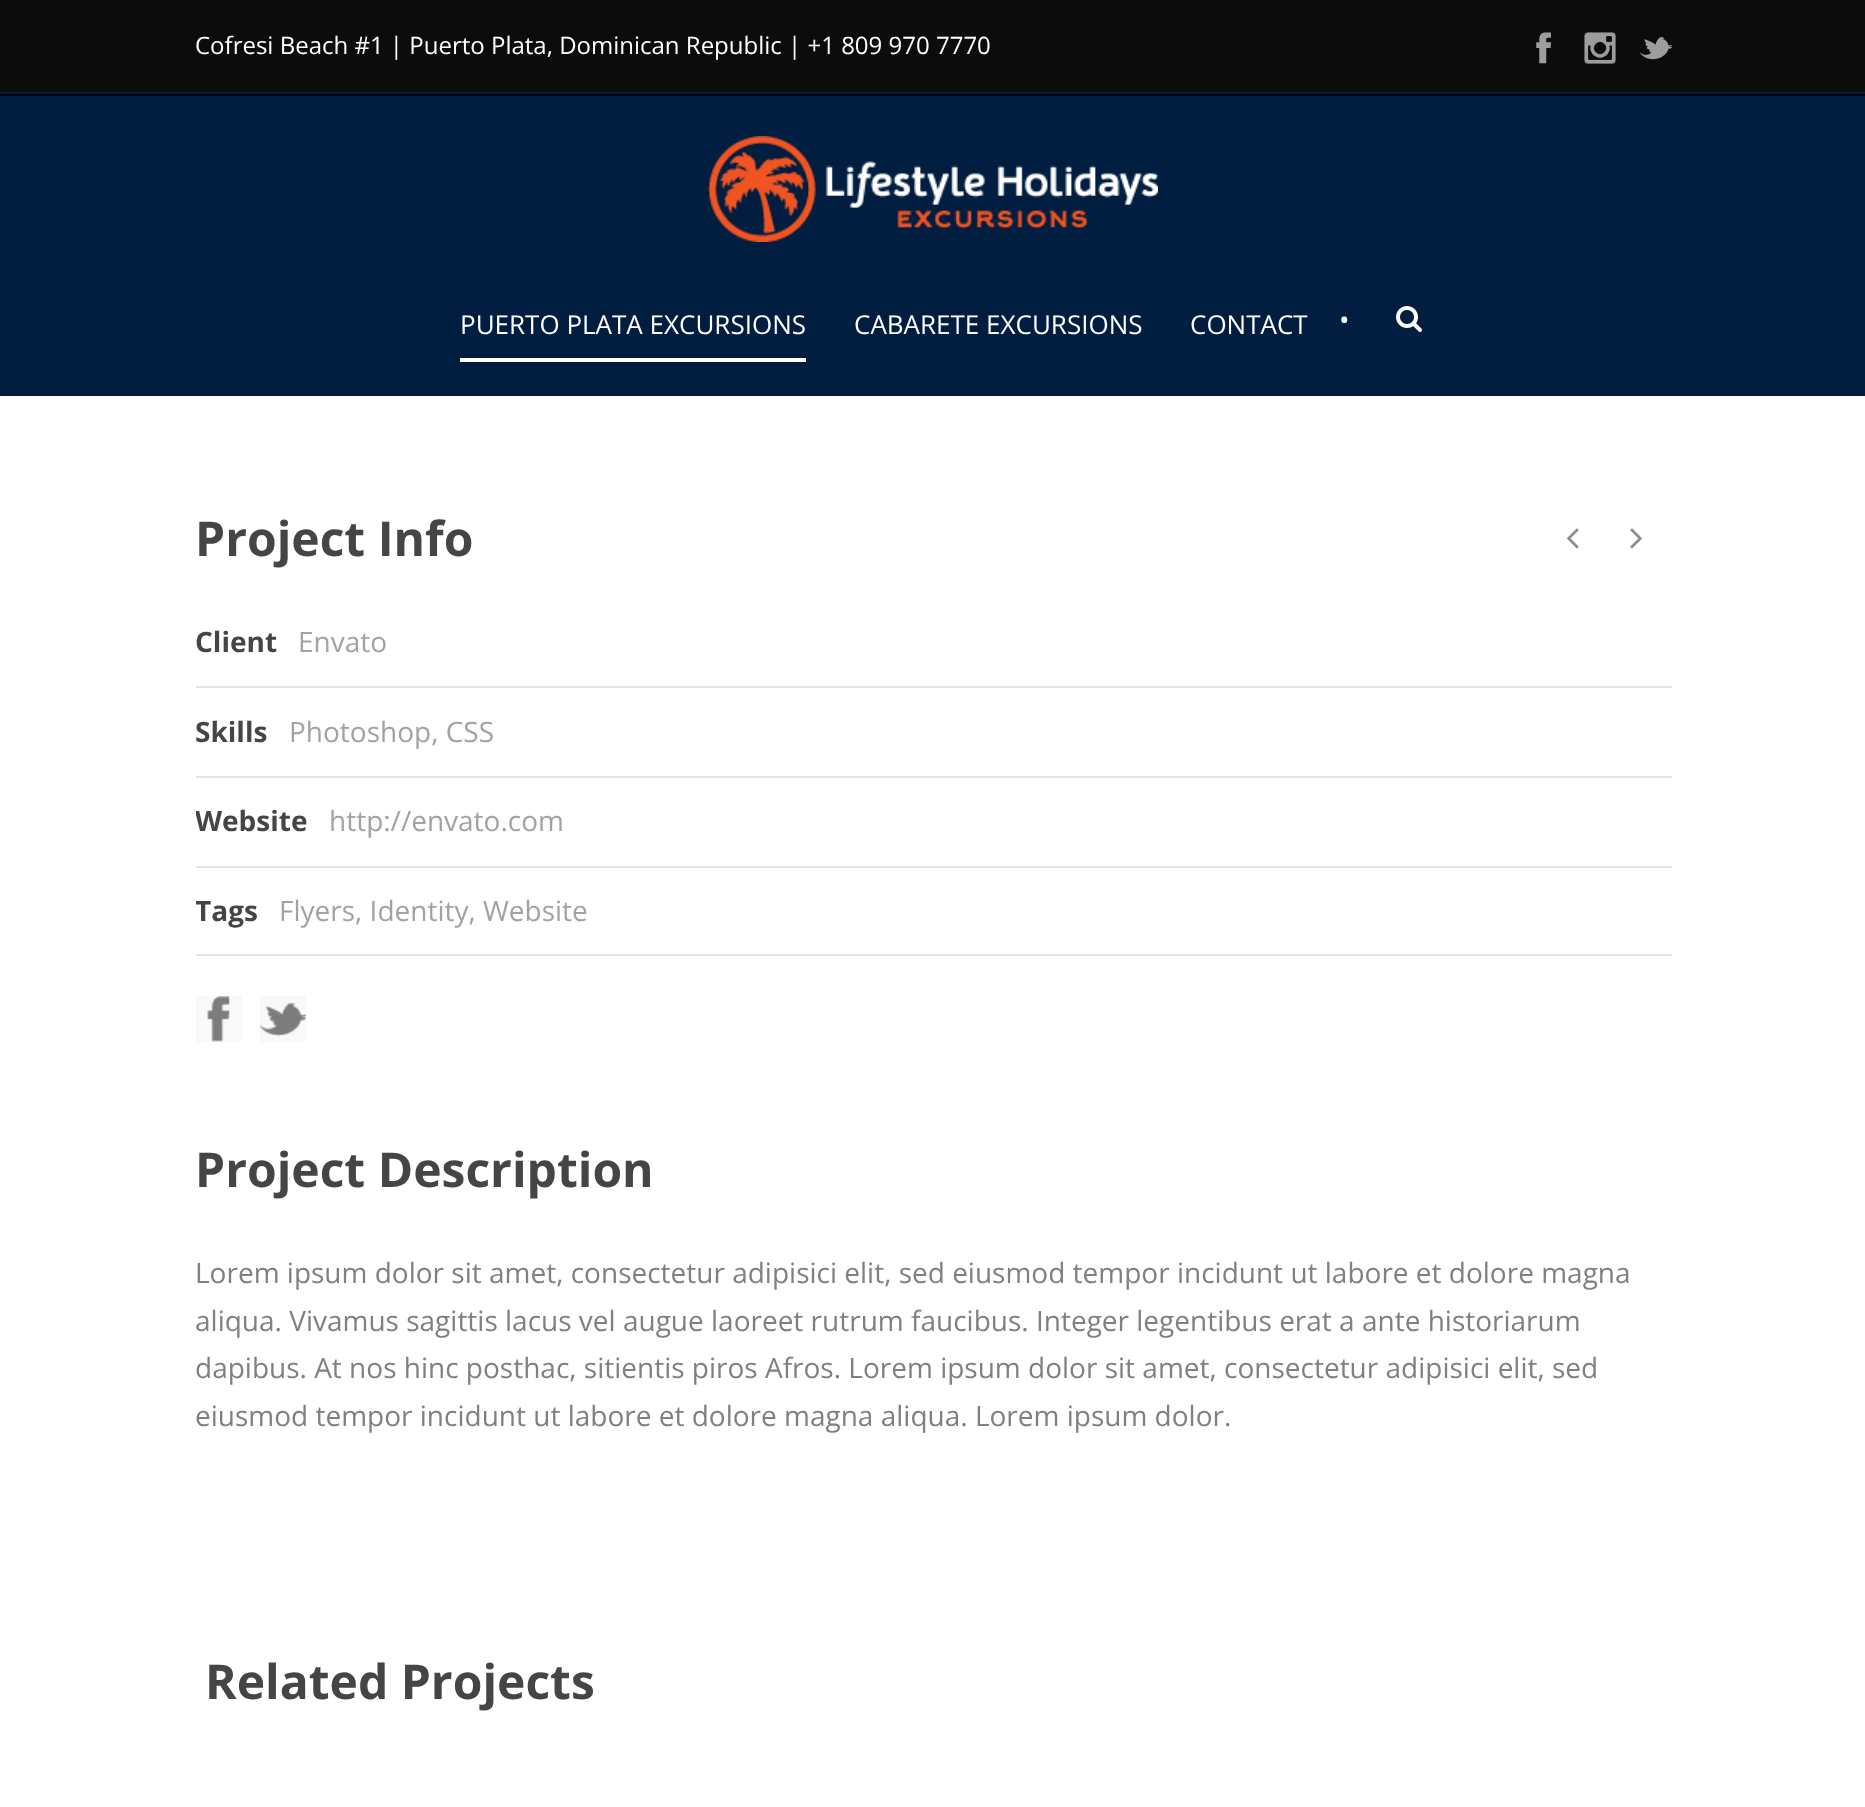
<svg xmlns="http://www.w3.org/2000/svg" width="1865" height="1807" viewBox="0 0 1865 1807">
  <defs>
    <clipPath id="clip1"><rect x="196" y="506" width="1476" height="974"/></clipPath>
  </defs>
  <rect width="100%" height="100%" fill="#ffffff"/>
  <rect x="0" y="92" width="1865" height="304" fill="#011e41"/>
  <rect x="0" y="0" width="1865" height="92" fill="#0c0c0c"/>
  <text x="195" y="54" font-family="Open Sans" font-size="24" fill="#ffffff">Cofresi Beach #1 | Puerto Plata, Dominican Republic | +1 809 970 7770</text>
  <image x="1536" y="32" width="15" height="32" href="img1.png"/>
  <image x="1584" y="32" width="32" height="32" href="img2.png"/>
  <image x="1640" y="37" width="32" height="23" href="img3.png"/>
  <rect x="0" y="94" width="1865" height="2" fill="#000000"/>
  <image x="708" y="136" width="450" height="106" href="img4.png"/>
  <text x="460" y="334" font-family="Open Sans" font-size="26" fill="#ffffff">PUERTO PLATA EXCURSIONS</text>
  <text x="854" y="334" font-family="Open Sans" font-size="26" fill="#ffffff">CABARETE EXCURSIONS</text>
  <text x="1190" y="334" font-family="Open Sans" font-size="26" fill="#ffffff">CONTACT</text>
  <text x="1339" y="330" font-family="Open Sans" font-size="28" fill="#ffffff">•</text>
  <image x="1396" y="306" width="26" height="26" href="img5.png"/>
  <rect x="460" y="358" width="346" height="4" fill="#ffffff"/>
  <text x="195" y="556" font-family="Open Sans" font-size="48" font-weight="bold" fill="#454545">Project Info</text>
  <image x="1567" y="528" width="12" height="21" href="img6.png"/>
  <image x="1630" y="528" width="12" height="21" href="img7.png"/>
  <rect x="196" y="686" width="1476" height="2" fill="#e5e5e5"/>
  <text x="195" y="652" font-family="Open Sans" font-size="28" font-weight="bold" fill="#454545">Client</text>
  <text x="298" y="652" font-family="Open Sans" font-size="28" fill="#a2a2a2">Envato</text>
  <rect x="196" y="776" width="1476" height="2" fill="#e5e5e5"/>
  <text x="195" y="742" font-family="Open Sans" font-size="28" font-weight="bold" fill="#454545">Skills</text>
  <text x="289" y="742" font-family="Open Sans" font-size="28" fill="#a2a2a2">Photoshop, CSS</text>
  <rect x="196" y="866" width="1476" height="2" fill="#e5e5e5"/>
  <g clip-path="url(#clip1)">
    <text x="195" y="831" font-family="Open Sans" font-size="28" font-weight="bold" fill="#454545">Website</text>
  </g>
  <text x="329" y="831" font-family="Open Sans" font-size="28" fill="#a2a2a2">http://envato.com</text>
  <rect x="196" y="954" width="1476" height="2" fill="#e5e5e5"/>
  <g clip-path="url(#clip1)">
    <text x="195" y="921" font-family="Open Sans" font-size="28" font-weight="bold" fill="#454545">Tags</text>
  </g>
  <text x="279" y="921" font-family="Open Sans" font-size="28" fill="#a2a2a2">Flyers, Identity, Website</text>
  <rect x="196" y="996" width="46" height="46" fill="#f9f9f9"/>
  <image x="207" y="996" width="23" height="46" href="img8.png"/>
  <rect x="260" y="996" width="46" height="46" fill="#f9f9f9"/>
  <image x="260" y="1003" width="46" height="34" href="img9.png"/>
  <text x="195" y="1187" font-family="Open Sans" font-size="48" font-weight="bold" fill="#454545">Project Description</text>
  <text x="195" y="1283" font-family="Open Sans" font-size="28" fill="#808080">Lorem ipsum dolor sit amet, consectetur adipisici elit, sed eiusmod tempor incidunt ut labore et dolore magna</text>
  <text x="195" y="1331" font-family="Open Sans" font-size="28" fill="#808080">aliqua. Vivamus sagittis lacus vel augue laoreet rutrum faucibus. Integer legentibus erat a ante historiarum</text>
  <text x="195" y="1378" font-family="Open Sans" font-size="28" fill="#808080">dapibus. At nos hinc posthac, sitientis piros Afros. Lorem ipsum dolor sit amet, consectetur adipisici elit, sed</text>
  <text x="195" y="1426" font-family="Open Sans" font-size="28" fill="#808080">eiusmod tempor incidunt ut labore et dolore magna aliqua. Lorem ipsum dolor.</text>
  <text x="205" y="1699" font-family="Open Sans" font-size="48" font-weight="bold" fill="#454545">Related Projects</text>
</svg>
